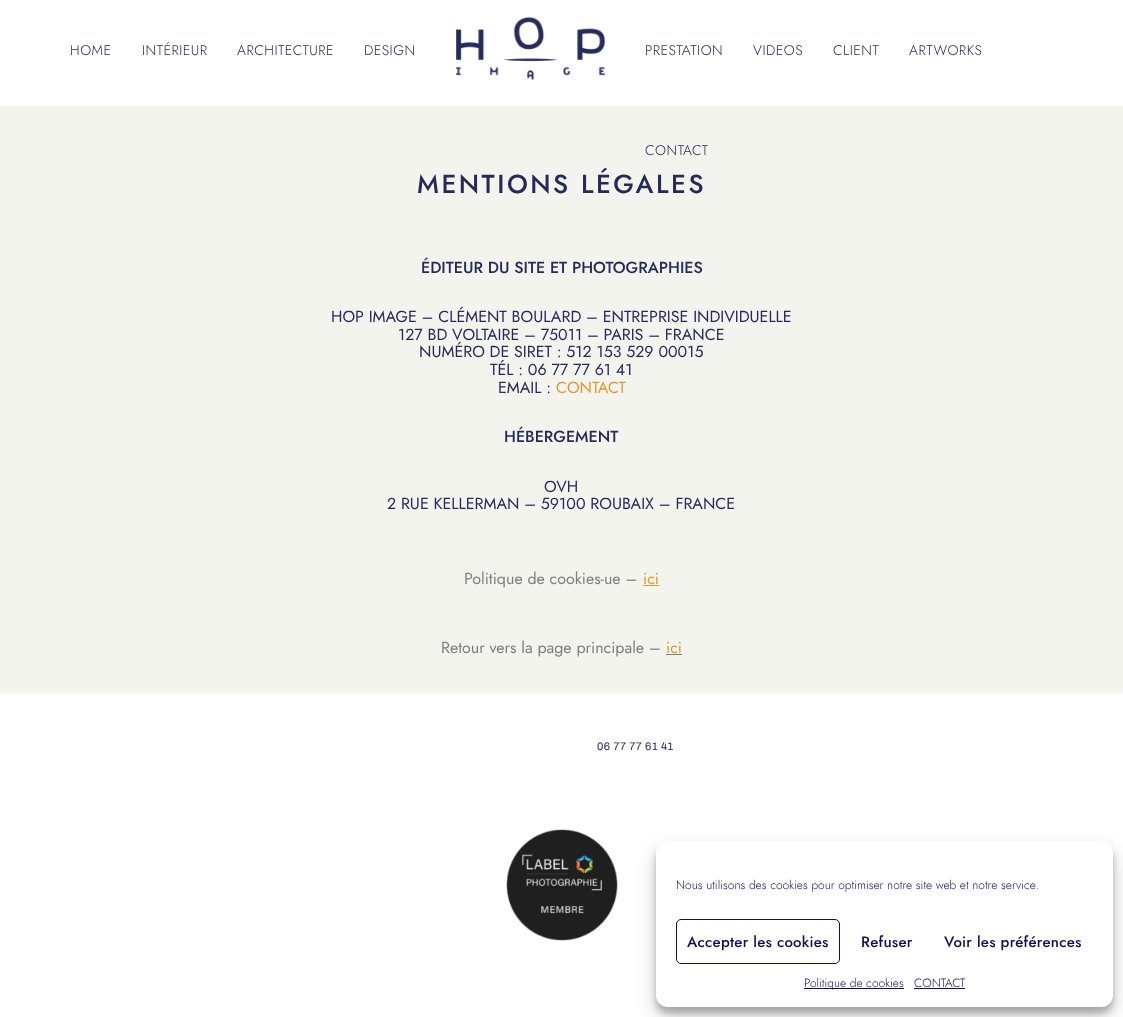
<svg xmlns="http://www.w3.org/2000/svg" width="1123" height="1017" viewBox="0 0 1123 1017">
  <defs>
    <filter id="blur1" x="-50%" y="-200%" width="200%" height="500%"><feGaussianBlur stdDeviation="3"/></filter>
    <filter id="blur2" x="-50%" y="-200%" width="200%" height="500%"><feGaussianBlur stdDeviation="10"/></filter>
  </defs>
  <rect width="100%" height="100%" fill="#f4f4ef"/>
  <rect x="0" y="0" width="1123" height="106" fill="#ffffff"/>
  <text x="70" y="55" font-family="Jost" font-size="14" font-weight="300" letter-spacing="0.5" fill="#252a5a">HOME</text>
  <text x="142" y="55" font-family="Jost" font-size="14" font-weight="300" letter-spacing="0.5" fill="#252a5a">INTÉRIEUR</text>
  <text x="237" y="55" font-family="Jost" font-size="14" font-weight="300" letter-spacing="0.5" fill="#252a5a">ARCHITECTURE</text>
  <text x="364" y="55" font-family="Jost" font-size="14" font-weight="300" letter-spacing="0.5" fill="#252a5a">DESIGN</text>
  <image x="456" y="16" width="150" height="64" href="img1.png"/>
  <text x="645" y="55" font-family="Jost" font-size="14" font-weight="300" letter-spacing="0.5" fill="#252a5a">PRESTATION</text>
  <text x="753" y="55" font-family="Jost" font-size="14" font-weight="300" letter-spacing="0.5" fill="#252a5a">VIDEOS</text>
  <text x="833" y="55" font-family="Jost" font-size="14" font-weight="300" letter-spacing="0.5" fill="#252a5a">CLIENT</text>
  <text x="909" y="55" font-family="Jost" font-size="14" font-weight="300" letter-spacing="0.5" fill="#252a5a">ARTWORKS</text>
  <text x="645" y="155" font-family="Jost" font-size="14" font-weight="300" letter-spacing="0.5" fill="#252a5a">CONTACT</text>
  <text x="417" y="193" font-family="Jost" font-size="26" font-weight="500" letter-spacing="2.5" fill="#252a5a">MENTIONS LÉGALES</text>
  <text x="421" y="273" font-family="Jost" font-size="16" font-weight="500" fill="#252a5a">ÉDITEUR DU SITE ET PHOTOGRAPHIES</text>
  <text x="331" y="322" font-family="Jost" font-size="16" fill="#252a5a">HOP IMAGE – CLÉMENT BOULARD – ENTREPRISE INDIVIDUELLE</text>
  <text x="398" y="340" font-family="Jost" font-size="16" fill="#252a5a">127 BD VOLTAIRE – 75011 – PARIS – FRANCE</text>
  <text x="419" y="357" font-family="Jost" font-size="16" fill="#252a5a">NUMÉRO DE SIRET : 512 153 529 00015</text>
  <text x="490" y="375" font-family="Jost" font-size="16" fill="#252a5a">TÉL : 06 77 77 61 41</text>
  <text x="498" y="393" font-family="Jost" font-size="16" fill="#252a5a">EMAIL :</text>
  <text x="556" y="393" font-family="Jost" font-size="16" fill="#dd9933">CONTACT</text>
  <text x="504" y="442" font-family="Jost" font-size="16" font-weight="500" fill="#252a5a">HÉBERGEMENT</text>
  <text x="544" y="492" font-family="Jost" font-size="16" fill="#252a5a">OVH</text>
  <text x="387" y="509" font-family="Jost" font-size="16" fill="#252a5a">2 RUE KELLERMAN – 59100 ROUBAIX – FRANCE</text>
  <text x="464" y="584" font-family="Jost" font-size="16" fill="#7e7e7e">Politique de cookies-ue –</text>
  <text x="643" y="584" font-family="Jost" font-size="16" fill="#dd9933">ici</text>
  <rect x="643" y="585" width="16" height="1" fill="#dd9933"/>
  <text x="441" y="653" font-family="Jost" font-size="16" fill="#7e7e7e">Retour vers la page principale –</text>
  <text x="666" y="653" font-family="Jost" font-size="16" fill="#dd9933">ici</text>
  <rect x="666" y="654" width="16" height="1" fill="#7e7e7e"/>
  <rect x="0" y="693" width="1123" height="324" fill="#ffffff"/>
  <text x="597" y="750" font-family="Archivo" font-size="11" font-weight="600" letter-spacing="0.5" fill="#252a5a">06 77 77 61 41</text>
  <image x="506" y="829" width="112" height="112" href="img2.png"/>
  <rect x="656" y="847" width="457" height="166" rx="12" fill="#000000" fill-opacity="0.23" filter="url(#blur1)"/>
  <rect x="656" y="851" width="457" height="166" rx="12" fill="#000000" fill-opacity="0.19" filter="url(#blur2)"/>
  <rect x="656" y="841" width="457" height="166" rx="12" fill="#ffffff"/>
  <text x="676" y="889" font-family="Jost" font-size="12" font-weight="300" fill="#140d56">Nous utilisons des cookies pour optimiser notre site web et notre service.</text>
  <rect x="676.5" y="919.5" width="163" height="44" rx="4.5" fill="none" stroke="#140d56"/>
  <text x="687" y="947" font-family="Jost" font-size="15" font-weight="500" letter-spacing="0.25" fill="#140d56">Accepter les cookies</text>
  <text x="861" y="947" font-family="Jost" font-size="15" font-weight="500" letter-spacing="0.25" fill="#140d56">Refuser</text>
  <text x="944" y="947" font-family="Jost" font-size="15" font-weight="500" letter-spacing="0.25" fill="#140d56">Voir les préférences</text>
  <rect x="804" y="988" width="100" height="1" fill="#140d56"/>
  <text x="804" y="987" font-family="Jost" font-size="12" font-weight="300" fill="#140d56">Politique de cookies</text>
  <text x="914" y="987" font-family="Jost" font-size="12" font-weight="300" fill="#140d56">CONTACT</text>
  <rect x="914" y="988" width="51" height="1" fill="#140d56"/>
</svg>
